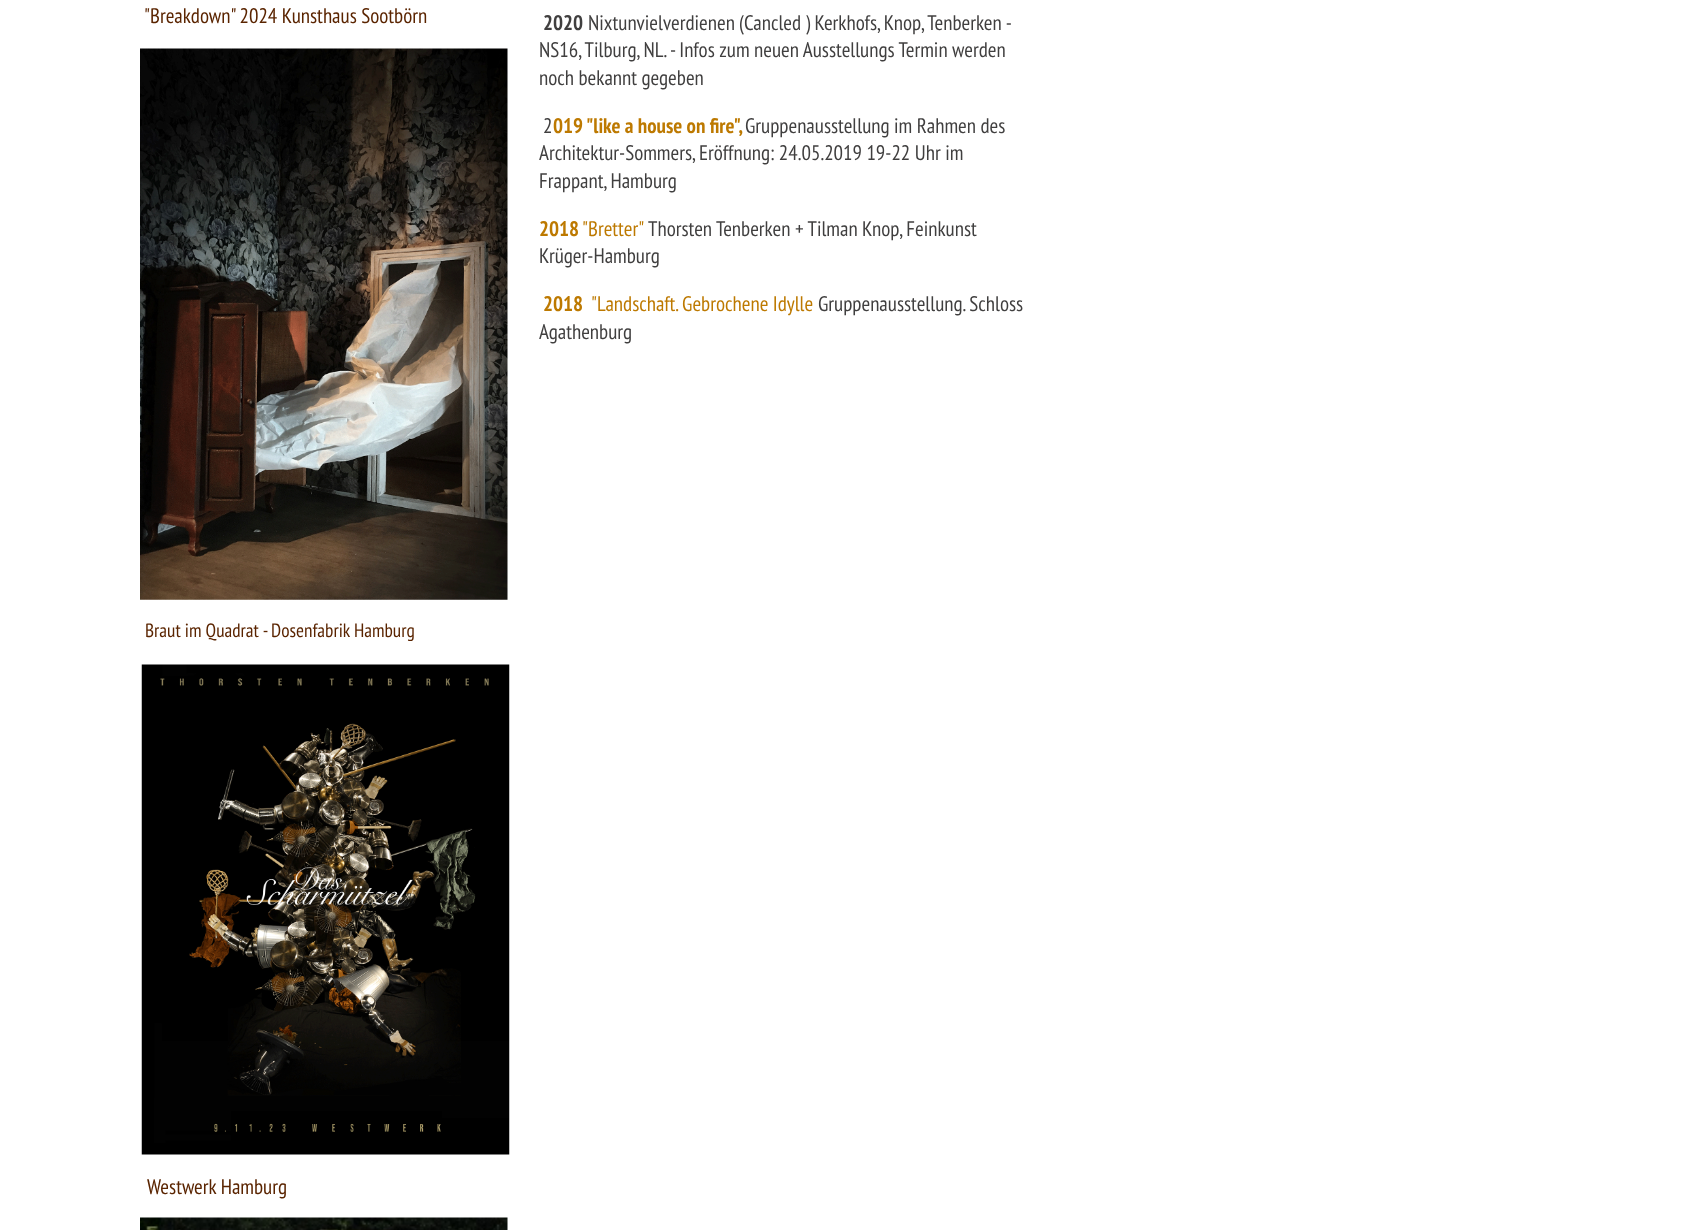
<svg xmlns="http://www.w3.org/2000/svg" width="1683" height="1230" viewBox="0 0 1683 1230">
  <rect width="100%" height="100%" fill="#ffffff"/>
  <text x="144" y="23" font-family="PT Sans Narrow" font-size="21" fill="#5a2400">"Breakdown" 2024 Kunsthaus Sootbörn</text>
  <text x="543" y="30" font-family="PT Sans Narrow" font-size="21" font-weight="bold" fill="#403f3f">2020</text>
  <text x="588" y="30" word-spacing="-0.25" font-family="PT Sans Narrow" font-size="21" fill="#403f3f">Nixtunvielverdienen (Cancled ) Kerkhofs, Knop, Tenberken -</text>
  <text x="539" y="57" font-family="PT Sans Narrow" font-size="21" fill="#403f3f">NS16, Tilburg, NL. - Infos zum neuen Ausstellungs Termin werden</text>
  <text x="539" y="85" font-family="PT Sans Narrow" font-size="21" fill="#403f3f">noch bekannt gegeben</text>
  <text x="543" y="133" font-family="PT Sans Narrow" font-size="21" fill="#403f3f">2</text>
  <text x="553" y="133" font-family="PT Sans Narrow" font-size="21" font-weight="bold" fill="#bd7900">019 "like a house on fire",</text>
  <text x="745" y="133" font-family="PT Sans Narrow" font-size="21" fill="#403f3f">Gruppenausstellung im Rahmen des</text>
  <text x="539" y="160" font-family="PT Sans Narrow" font-size="21" fill="#403f3f">Architektur-Sommers, Eröffnung: 24.05.2019 19-22 Uhr im</text>
  <text x="539" y="188" font-family="PT Sans Narrow" font-size="21" fill="#403f3f">Frappant, Hamburg</text>
  <text x="539" y="236" font-family="PT Sans Narrow" font-size="21" font-weight="bold" fill="#bd7900">2018</text>
  <text x="582" y="236" font-family="PT Sans Narrow" font-size="21" fill="#bd7900">"Bretter"</text>
  <text x="648" y="236" font-family="PT Sans Narrow" font-size="21" fill="#403f3f">Thorsten Tenberken + Tilman Knop, Feinkunst</text>
  <text x="539" y="263" font-family="PT Sans Narrow" font-size="21" fill="#403f3f">Krüger-Hamburg</text>
  <text x="543" y="311" font-family="PT Sans Narrow" font-size="21" font-weight="bold" fill="#bd7900">2018</text>
  <text x="591" y="311" font-family="PT Sans Narrow" font-size="21" fill="#bd7900">"Landschaft. Gebrochene Idylle</text>
  <text x="818" y="311" font-family="PT Sans Narrow" font-size="21" fill="#403f3f">Gruppenausstellung. Schloss</text>
  <text x="539" y="339" font-family="PT Sans Narrow" font-size="21" fill="#403f3f">Agathenburg</text>
  <image x="140" y="48" width="368" height="552" href="img1.png"/>
  <text x="145" y="637" font-family="PT Sans Narrow" font-size="19.25" fill="#5a2400">Braut im Quadrat - Dosenfabrik Hamburg</text>
  <image x="141" y="664" width="369" height="491" href="img2.png"/>
  <text x="147" y="1194" font-family="PT Sans Narrow" font-size="21" fill="#5a2400">Westwerk Hamburg</text>
  <image x="140" y="1217" width="368" height="13" href="img3.png"/>
</svg>
